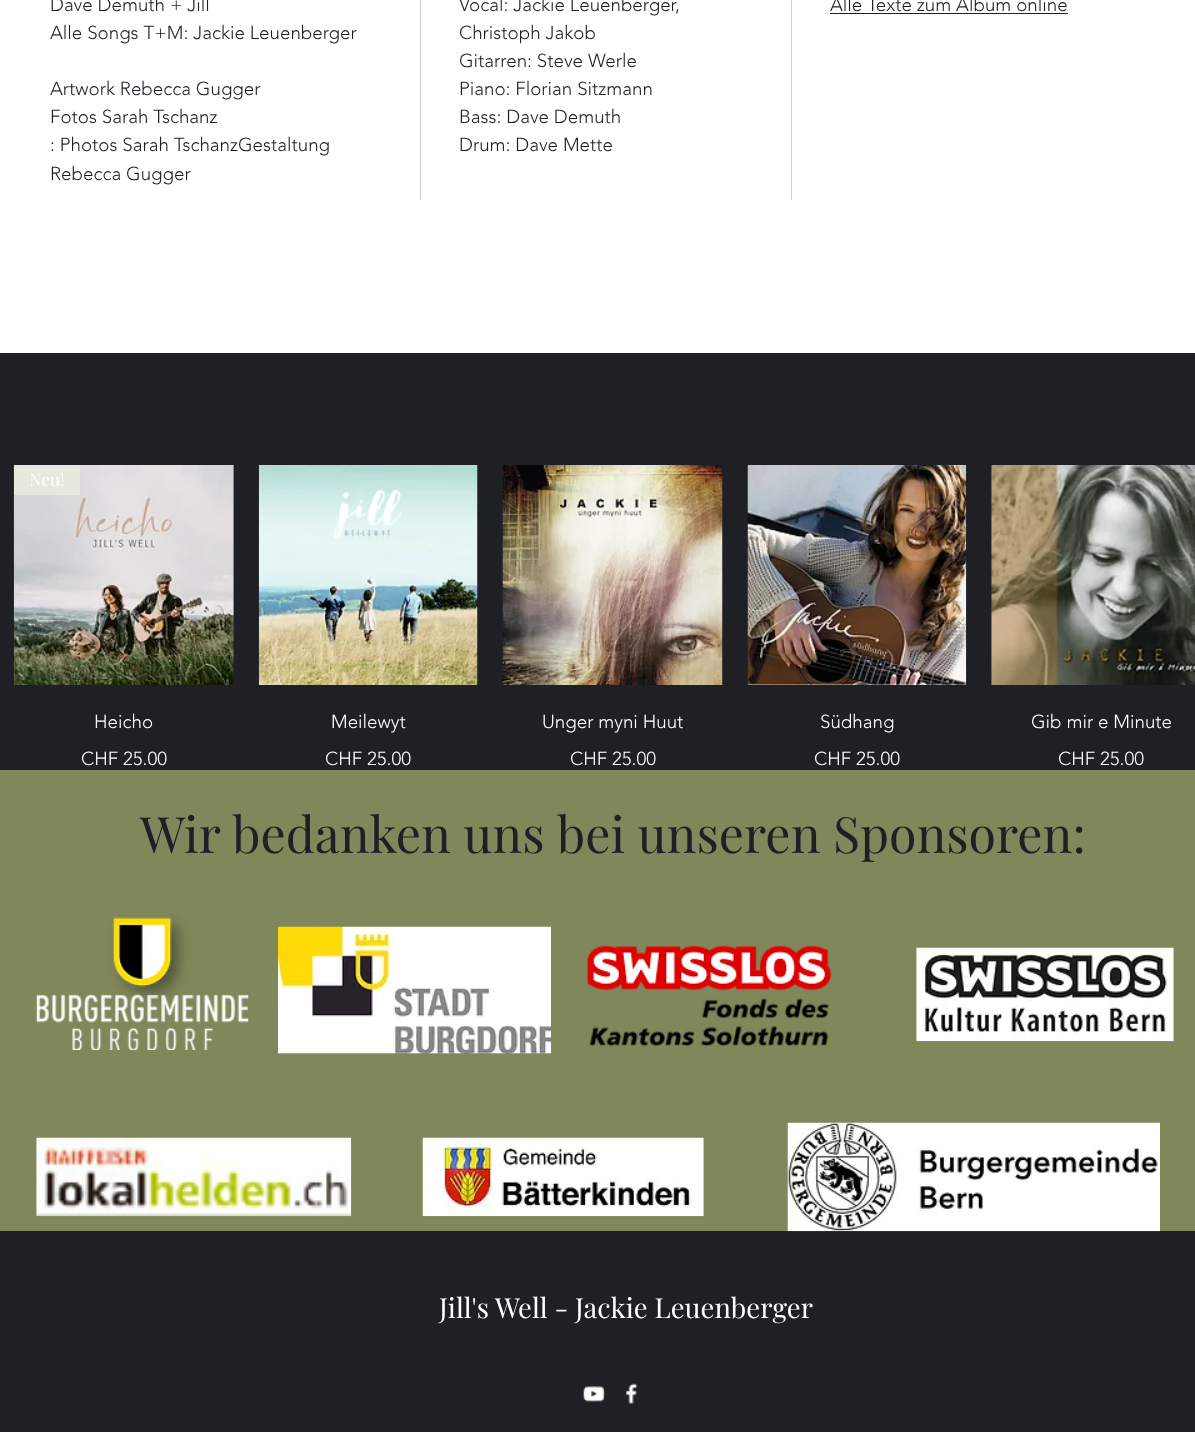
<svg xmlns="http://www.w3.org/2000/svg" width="1195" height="1432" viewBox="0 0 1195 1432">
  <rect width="100%" height="100%" fill="#ffffff"/>
  <rect x="420" y="0" width="1" height="200" fill="#d2d2d3"/>
  <text x="50" y="11" font-family="'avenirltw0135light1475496'" font-size="18.75" font-weight="300" fill="#1e2025">Dave Demuth + Jill</text>
  <text x="50" y="39" font-family="'avenirltw0135light1475496'" font-size="18.75" font-weight="300" fill="#1e2025">Alle Songs T+M: Jackie Leuenberger</text>
  <text x="50" y="95" font-family="'avenirltw0135light1475496'" font-size="18.75" font-weight="300" fill="#1e2025">Artwork Rebecca Gugger</text>
  <text x="50" y="123" font-family="'avenirltw0135light1475496'" font-size="18.75" font-weight="300" fill="#1e2025">Fotos Sarah Tschanz</text>
  <text x="50" y="151" font-family="'avenirltw0135light1475496'" font-size="18.75" font-weight="300" fill="#1e2025">: Photos Sarah TschanzGestaltung</text>
  <text x="50" y="180" font-family="'avenirltw0135light1475496'" font-size="18.75" font-weight="300" fill="#1e2025">Rebecca Gugger</text>
  <rect x="791" y="0" width="1" height="200" fill="#d2d2d3"/>
  <text x="459" y="11" font-family="'avenirltw0135light1475496'" font-size="18.75" font-weight="300" fill="#1e2025">Vocal: Jackie Leuenberger,</text>
  <text x="459" y="39" font-family="'avenirltw0135light1475496'" font-size="18.75" font-weight="300" fill="#1e2025">Christoph Jakob</text>
  <text x="459" y="67" font-family="'avenirltw0135light1475496'" font-size="18.75" font-weight="300" fill="#1e2025">Gitarren: Steve Werle</text>
  <text x="459" y="95" font-family="'avenirltw0135light1475496'" font-size="18.75" font-weight="300" fill="#1e2025">Piano: Florian Sitzmann</text>
  <text x="459" y="123" font-family="'avenirltw0135light1475496'" font-size="18.75" font-weight="300" fill="#1e2025">Bass: Dave Demuth</text>
  <text x="459" y="151" font-family="'avenirltw0135light1475496'" font-size="18.75" font-weight="300" fill="#1e2025">Drum: Dave Mette</text>
  <text x="830" y="11" font-family="'avenirltw0135light1475496'" font-size="18.75" font-weight="300" fill="#1e2025">Alle Texte zum Album online</text>
  <rect x="830" y="13" width="238" height="1" fill="#1e2025"/>
  <rect x="0" y="353" width="1195" height="417" fill="#1e2025"/>
  <image x="13" y="465" width="221" height="220" href="img1.png"/>
  <rect x="14" y="465" width="66" height="30" fill="#e7e9de"/>
  <text x="29" y="486" font-family="Playfair Display" font-size="17.5" fill="#ffffff">Neu!</text>
  <text x="94" y="728" font-family="'avenirltw0135light1475496'" font-size="18.75" font-weight="300" fill="#ffffff">Heicho</text>
  <text x="81" y="765" font-family="'avenirltw0135light1475496'" font-size="18.75" font-weight="300" fill="#ffffff">CHF 25.00</text>
  <image x="258" y="465" width="220" height="220" href="img2.png"/>
  <text x="331" y="728" font-family="'avenirltw0135light1475496'" font-size="18.75" font-weight="300" fill="#ffffff">Meilewyt</text>
  <text x="325" y="765" font-family="'avenirltw0135light1475496'" font-size="18.75" font-weight="300" fill="#ffffff">CHF 25.00</text>
  <image x="502" y="465" width="221" height="220" href="img3.png"/>
  <text x="542" y="728" font-family="'avenirltw0135light1475496'" font-size="18.75" font-weight="300" fill="#ffffff">Unger myni Huut</text>
  <text x="570" y="765" font-family="'avenirltw0135light1475496'" font-size="18.75" font-weight="300" fill="#ffffff">CHF 25.00</text>
  <image x="747" y="465" width="220" height="220" href="img4.png"/>
  <text x="820" y="728" font-family="'avenirltw0135light1475496'" font-size="18.75" font-weight="300" fill="#ffffff">Südhang</text>
  <text x="814" y="765" font-family="'avenirltw0135light1475496'" font-size="18.75" font-weight="300" fill="#ffffff">CHF 25.00</text>
  <image x="991" y="465" width="204" height="220" href="img5.png"/>
  <text x="1031" y="728" font-family="'avenirltw0135light1475496'" font-size="18.75" font-weight="300" fill="#ffffff">Gib mir e Minute</text>
  <text x="1058" y="765" font-family="'avenirltw0135light1475496'" font-size="18.75" font-weight="300" fill="#ffffff">CHF 25.00</text>
  <rect x="0" y="770" width="1195" height="461" fill="#80885b"/>
  <text x="140" y="853" font-family="Playfair Display" font-size="50" fill="#1e2025">Wir bedanken uns bei unseren Sponsoren:</text>
  <image x="36" y="915" width="213" height="135" href="img6.png"/>
  <image x="278" y="926" width="273" height="128" href="img7.png"/>
  <image x="586" y="945" width="246" height="102" href="img8.png"/>
  <image x="916" y="947" width="258" height="95" href="img9.png"/>
  <image x="36" y="1137" width="316" height="80" href="img10.png"/>
  <image x="422" y="1137" width="282" height="80" href="img11.png"/>
  <rect x="0" y="1231" width="1195" height="201" fill="#1e2025"/>
  <image x="787" y="1122" width="373" height="110" href="img12.png"/>
  <text x="439" y="1318" font-family="Playfair Display" font-size="27.5" fill="#ffffff">Jill's Well - Jackie Leuenberger</text>
  <image x="582" y="1386" width="23" height="16" href="img13.png"/>
  <image x="626" y="1383" width="11" height="21" href="img14.png"/>
</svg>
